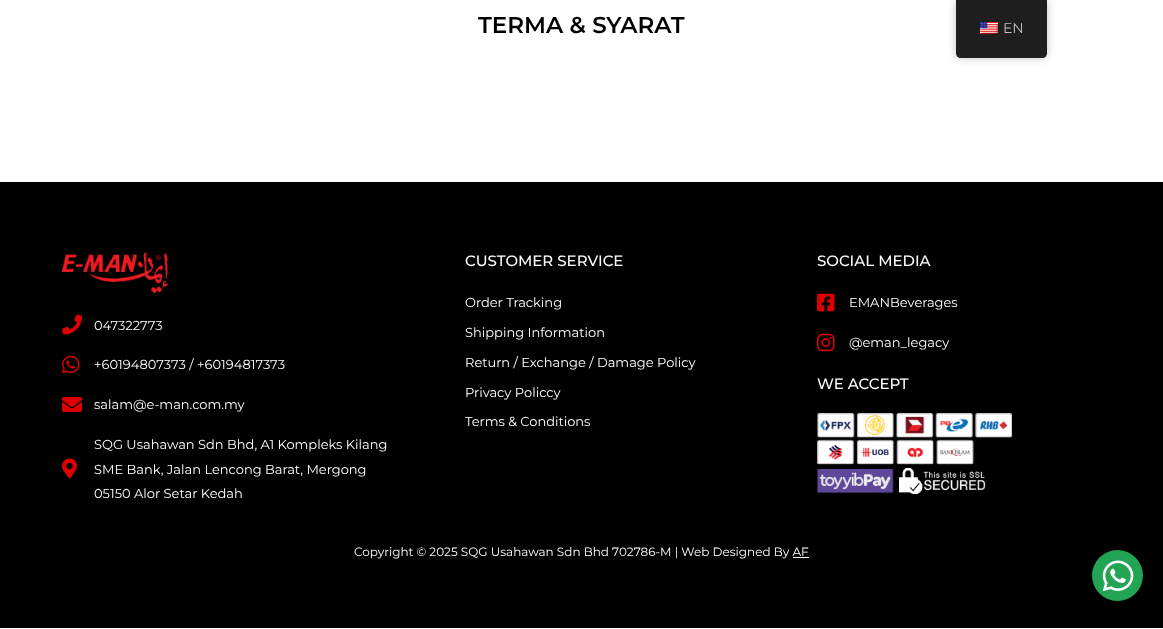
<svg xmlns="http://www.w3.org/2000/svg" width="1163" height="629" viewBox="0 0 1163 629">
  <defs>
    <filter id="blur1" x="-50%" y="-200%" width="200%" height="500%"><feGaussianBlur stdDeviation="4"/></filter>
  </defs>
  <rect width="100%" height="100%" fill="#ffffff"/>
  <text x="478" y="33" font-family="Montserrat" font-size="23" font-weight="600" fill="#000000">TERMA &amp; SYARAT</text>
  <rect x="0" y="182" width="1163" height="446" fill="#000000"/>
  <image x="62" y="252" width="106" height="41" href="img1.png"/>
  <image x="62" y="314" width="20" height="21" href="img2.png"/>
  <text x="94" y="330" font-family="Montserrat" font-size="13" fill="#ffffff">047322773</text>
  <image x="62" y="355" width="18" height="19" href="img3.png"/>
  <text x="94" y="369" font-family="Montserrat" font-size="13" fill="#ffffff">+60194807373 / +60194817373</text>
  <image x="62" y="397" width="20" height="15" href="img4.png"/>
  <text x="94" y="409" font-family="Montserrat" font-size="13" fill="#ffffff">salam@e-man.com.my</text>
  <image x="62" y="458" width="15" height="21" href="img5.png"/>
  <text x="94" y="449" font-family="Montserrat" font-size="13" fill="#ffffff">SQG Usahawan Sdn Bhd, A1 Kompleks Kilang</text>
  <text x="94" y="474" font-family="Montserrat" font-size="13" fill="#ffffff">SME Bank, Jalan Lencong Barat, Mergong</text>
  <text x="94" y="498" font-family="Montserrat" font-size="13" fill="#ffffff">05150 Alor Setar Kedah</text>
  <text x="465" y="266" font-family="Montserrat" font-size="15" font-weight="500" fill="#ffffff">CUSTOMER SERVICE</text>
  <text x="465" y="307" font-family="Montserrat" font-size="13" fill="#ffffff">Order Tracking</text>
  <text x="465" y="337" font-family="Montserrat" font-size="13" fill="#ffffff">Shipping Information</text>
  <text x="465" y="367" font-family="Montserrat" font-size="13" fill="#ffffff">Return / Exchange / Damage Policy</text>
  <text x="465" y="397" font-family="Montserrat" font-size="13" fill="#ffffff">Privacy Policcy</text>
  <text x="465" y="426" font-family="Montserrat" font-size="13" fill="#ffffff">Terms &amp; Conditions</text>
  <text x="817" y="266" font-family="Montserrat" font-size="15" font-weight="500" fill="#ffffff">SOCIAL MEDIA</text>
  <image x="817" y="293" width="18" height="19" href="img6.png"/>
  <text x="849" y="307" font-family="Montserrat" font-size="13" fill="#ffffff">EMANBeverages</text>
  <image x="817" y="333" width="18" height="19" href="img7.png"/>
  <text x="849" y="347" font-family="Montserrat" font-size="13" fill="#ffffff">@eman_legacy</text>
  <text x="817" y="389" font-family="Montserrat" font-size="15" font-weight="500" fill="#ffffff">WE ACCEPT</text>
  <image x="817" y="413" width="195" height="81" href="img8.png"/>
  <text x="354" y="556" font-family="Montserrat" font-size="12" fill="#ffffff">Copyright © 2025 SQG Usahawan Sdn Bhd 702786-M | Web Designed By AF</text>
  <rect x="793" y="557" width="16" height="1" fill="#ffffff"/>
  <circle cx="1117.5" cy="575.5" r="25.5" fill="#23a455"/>
  <image x="1102" y="560" width="32" height="32" href="img9.png"/>
  <rect x="956" y="0" width="91" height="58" rx="5" fill="#000000" fill-opacity="0.25" filter="url(#blur1)"/>
  <path d="M956 0H1047V53C1047 56 1045 58 1042 58H961C958 58 956 56 956 53Z" fill="#1e1e1e"/>
  <image x="980" y="22" width="18" height="12" href="img10.png"/>
  <text x="1003" y="33" font-family="Montserrat" font-size="14" fill="#bdbdbd">EN</text>
</svg>
